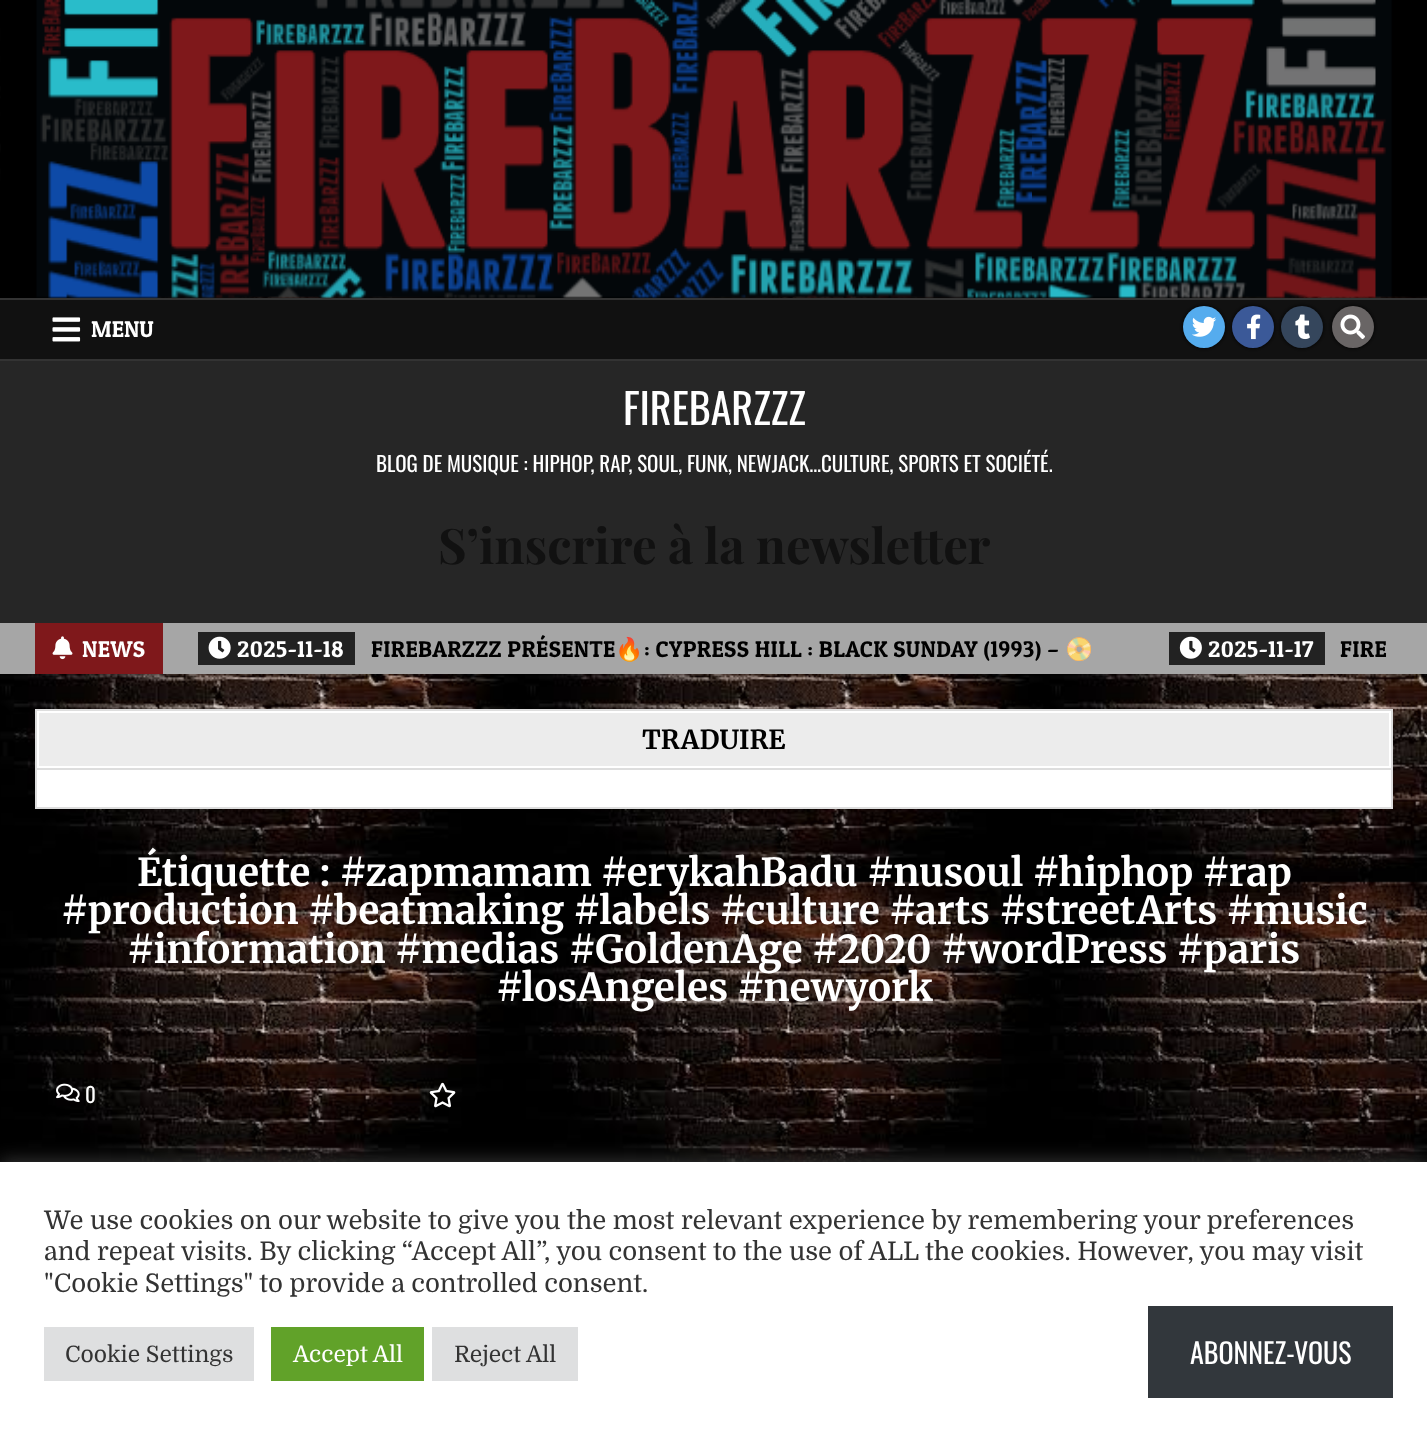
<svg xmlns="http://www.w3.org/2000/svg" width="1427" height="1432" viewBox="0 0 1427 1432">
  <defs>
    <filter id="blur1" x="-50%" y="-200%" width="200%" height="500%"><feGaussianBlur stdDeviation="2"/></filter>
    <clipPath id="clip1"><path d="M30 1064H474V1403H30ZM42 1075H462V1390H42Z" clip-rule="evenodd"/></clipPath>
    <filter id="blur2" x="-50%" y="-200%" width="200%" height="500%"><feGaussianBlur stdDeviation="3.5"/></filter>
    <filter id="blur3" x="-50%" y="-200%" width="200%" height="500%"><feGaussianBlur stdDeviation="9"/></filter>
  </defs>
  <rect width="100%" height="100%" fill="#ffffff"/>
  <image x="0" y="0" width="1427" height="1162" href="img1.png"/>
  <image x="1" y="0" width="1426" height="298" href="img2.png"/>
  <rect x="0" y="300" width="1427" height="59" fill="#111111"/>
  <rect x="0" y="298" width="1427" height="2" fill="#333333"/>
  <rect x="0" y="359" width="1427" height="2" fill="#333333"/>
  <image x="52" y="317" width="29" height="25" href="img3.png"/>
  <text x="91" y="337" font-family="Patua One" font-size="22.75" fill="#ffffff">MENU</text>
  <rect x="1183" y="306" width="42" height="42" rx="21" fill="#000000" filter="url(#blur1)"/>
  <circle cx="1204" cy="327" r="21" fill="#55acee"/>
  <image x="1192" y="316" width="25" height="21" href="img4.png"/>
  <rect x="1232" y="306" width="42" height="42" rx="21" fill="#000000" filter="url(#blur1)"/>
  <circle cx="1253" cy="327" r="21" fill="#3b5998"/>
  <image x="1247" y="314" width="14" height="26" href="img5.png"/>
  <rect x="1281" y="306" width="42" height="42" rx="21" fill="#000000" filter="url(#blur1)"/>
  <circle cx="1302" cy="327" r="21" fill="#35465c"/>
  <image x="1295" y="314" width="15" height="26" href="img6.png"/>
  <rect x="1332" y="306" width="42" height="42" rx="21" fill="#000000" filter="url(#blur1)"/>
  <circle cx="1353" cy="327" r="21" fill="#696565"/>
  <image x="1340" y="314" width="25" height="25" href="img7.png"/>
  <rect x="0" y="361" width="1427" height="262" fill="#262626"/>
  <text x="623" y="425" font-family="Oswald" font-size="42" fill="#ffffff">FIREBARZZZ</text>
  <text x="376" y="472" font-family="Oswald" font-size="21" fill="#ffffff">BLOG DE MUSIQUE : HIPHOP, RAP, SOUL, FUNK, NEWJACK…CULTURE, SPORTS ET SOCIÉTÉ.</text>
  <text x="438" y="564" font-family="Playfair Display" font-size="49" font-weight="bold" fill="#111111">S’inscrire à la newsletter</text>
  <rect x="0" y="623" width="1427" height="51" fill="#a6a6a6"/>
  <rect x="35" y="623" width="128" height="51" fill="#7f181b"/>
  <image x="52" y="636" width="21" height="24" href="img8.png"/>
  <text x="82" y="657" font-family="Patua One" font-size="22.75" letter-spacing="0.35" fill="#ffffff">NEWS</text>
  <rect x="198" y="632" width="157" height="33" fill="#222222"/>
  <image x="208" y="636" width="23" height="23" href="img9.png"/>
  <text x="237" y="657" font-family="Patua One" font-size="22.75" letter-spacing="0.35" fill="#ffffff">2025-11-18</text>
  <text x="371" y="657" font-family="Patua One" font-size="22.75" letter-spacing="0.35" fill="#000000">FIREBARZZZ PRÉSENTE</text>
  <text x="615" y="657" font-family="Noto Color Emoji" font-size="22.75" letter-spacing="0.35" fill="#000000">🔥</text>
  <text x="644" y="657" font-family="Patua One" font-size="22.75" letter-spacing="0.35" fill="#000000">: CYPRESS HILL : BLACK SUNDAY (1993) –</text>
  <text x="1065" y="657" font-family="Noto Color Emoji" font-size="22.75" letter-spacing="0.35" fill="#000000">📀</text>
  <rect x="1169" y="632" width="156" height="33" fill="#222222"/>
  <image x="1179" y="636" width="23" height="23" href="img10.png"/>
  <text x="1208" y="657" font-family="Patua One" font-size="22.75" letter-spacing="0.35" fill="#ffffff">2025-11-17</text>
  <text x="1340" y="657" font-family="Patua One" font-size="22.75" letter-spacing="0.35" fill="#000000">FIRE</text>
  <rect x="37" y="770" width="1354" height="37" fill="#ffffff"/>
  <rect x="36" y="710" width="1356" height="98" fill="none" stroke="#dddddd" stroke-width="2"/>
  <rect x="37" y="768" width="1354" height="2" fill="#dddddd"/>
  <rect x="38" y="712" width="1352" height="55" fill="#ececec" stroke="#ffffff" stroke-width="2"/>
  <text x="642" y="749" font-family="Merriweather" font-size="26.25" font-weight="bold" fill="#000000">TRADUIRE</text>
  <text x="137" y="886" font-family="Merriweather" font-size="38.5" font-weight="bold" fill="#ffffff">Étiquette : #zapmamam #erykahBadu #nusoul #hiphop #rap</text>
  <text x="61" y="924" font-family="Merriweather" font-size="38.5" font-weight="bold" fill="#ffffff">#production #beatmaking #labels #culture #arts #streetArts #music</text>
  <text x="127" y="963" font-family="Merriweather" font-size="38.5" font-weight="bold" fill="#ffffff">#information #medias #GoldenAge #2020 #wordPress #paris</text>
  <text x="496" y="1001" font-family="Merriweather" font-size="38.5" font-weight="bold" fill="#ffffff">#losAngeles #newyork</text>
  <g clip-path="url(#clip1)">
    <rect x="42" y="1076" width="420" height="315" fill="#000000" fill-opacity="0.3" filter="url(#blur2)"/>
  </g>
  <image x="56" y="1083" width="24" height="20" href="img11.png"/>
  <text x="85" y="1103" font-family="Oswald" font-size="21" fill="#ffffff">0</text>
  <image x="429" y="1082" width="27" height="26" href="img12.png"/>
  <rect x="0" y="1160" width="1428" height="272" fill="#acabab" fill-opacity="0.3" filter="url(#blur3)"/>
  <rect x="0" y="1162" width="1427" height="270" fill="#ffffff"/>
  <text x="44" y="1229" font-family="Domine" font-size="25.67" fill="#333333">We use cookies on our website to give you the most relevant experience by remembering your preferences</text>
  <text x="44" y="1260" font-family="Domine" font-size="25.67" fill="#333333">and repeat visits. By clicking “Accept All”, you consent to the use of ALL the cookies. However, you may visit</text>
  <text x="44" y="1292" font-family="Domine" font-size="25.67" fill="#333333">"Cookie Settings" to provide a controlled consent.</text>
  <rect x="44" y="1327" width="210" height="54" fill="#dedfe0"/>
  <text x="65" y="1362" font-family="Domine" font-size="22.75" fill="#333333">Cookie Settings</text>
  <rect x="271" y="1327" width="153" height="54" fill="#61a229"/>
  <text x="293" y="1362" font-family="Domine" font-size="22.75" fill="#ffffff">Accept All</text>
  <rect x="432" y="1327" width="146" height="54" fill="#dedfe0"/>
  <text x="454" y="1362" font-family="Domine" font-size="22.75" fill="#333333">Reject All</text>
  <rect x="1148" y="1306" width="245" height="92" fill="#32373c"/>
  <text x="1190" y="1364" font-family="Oswald" font-size="28" fill="#ffffff">ABONNEZ-VOUS</text>
</svg>
